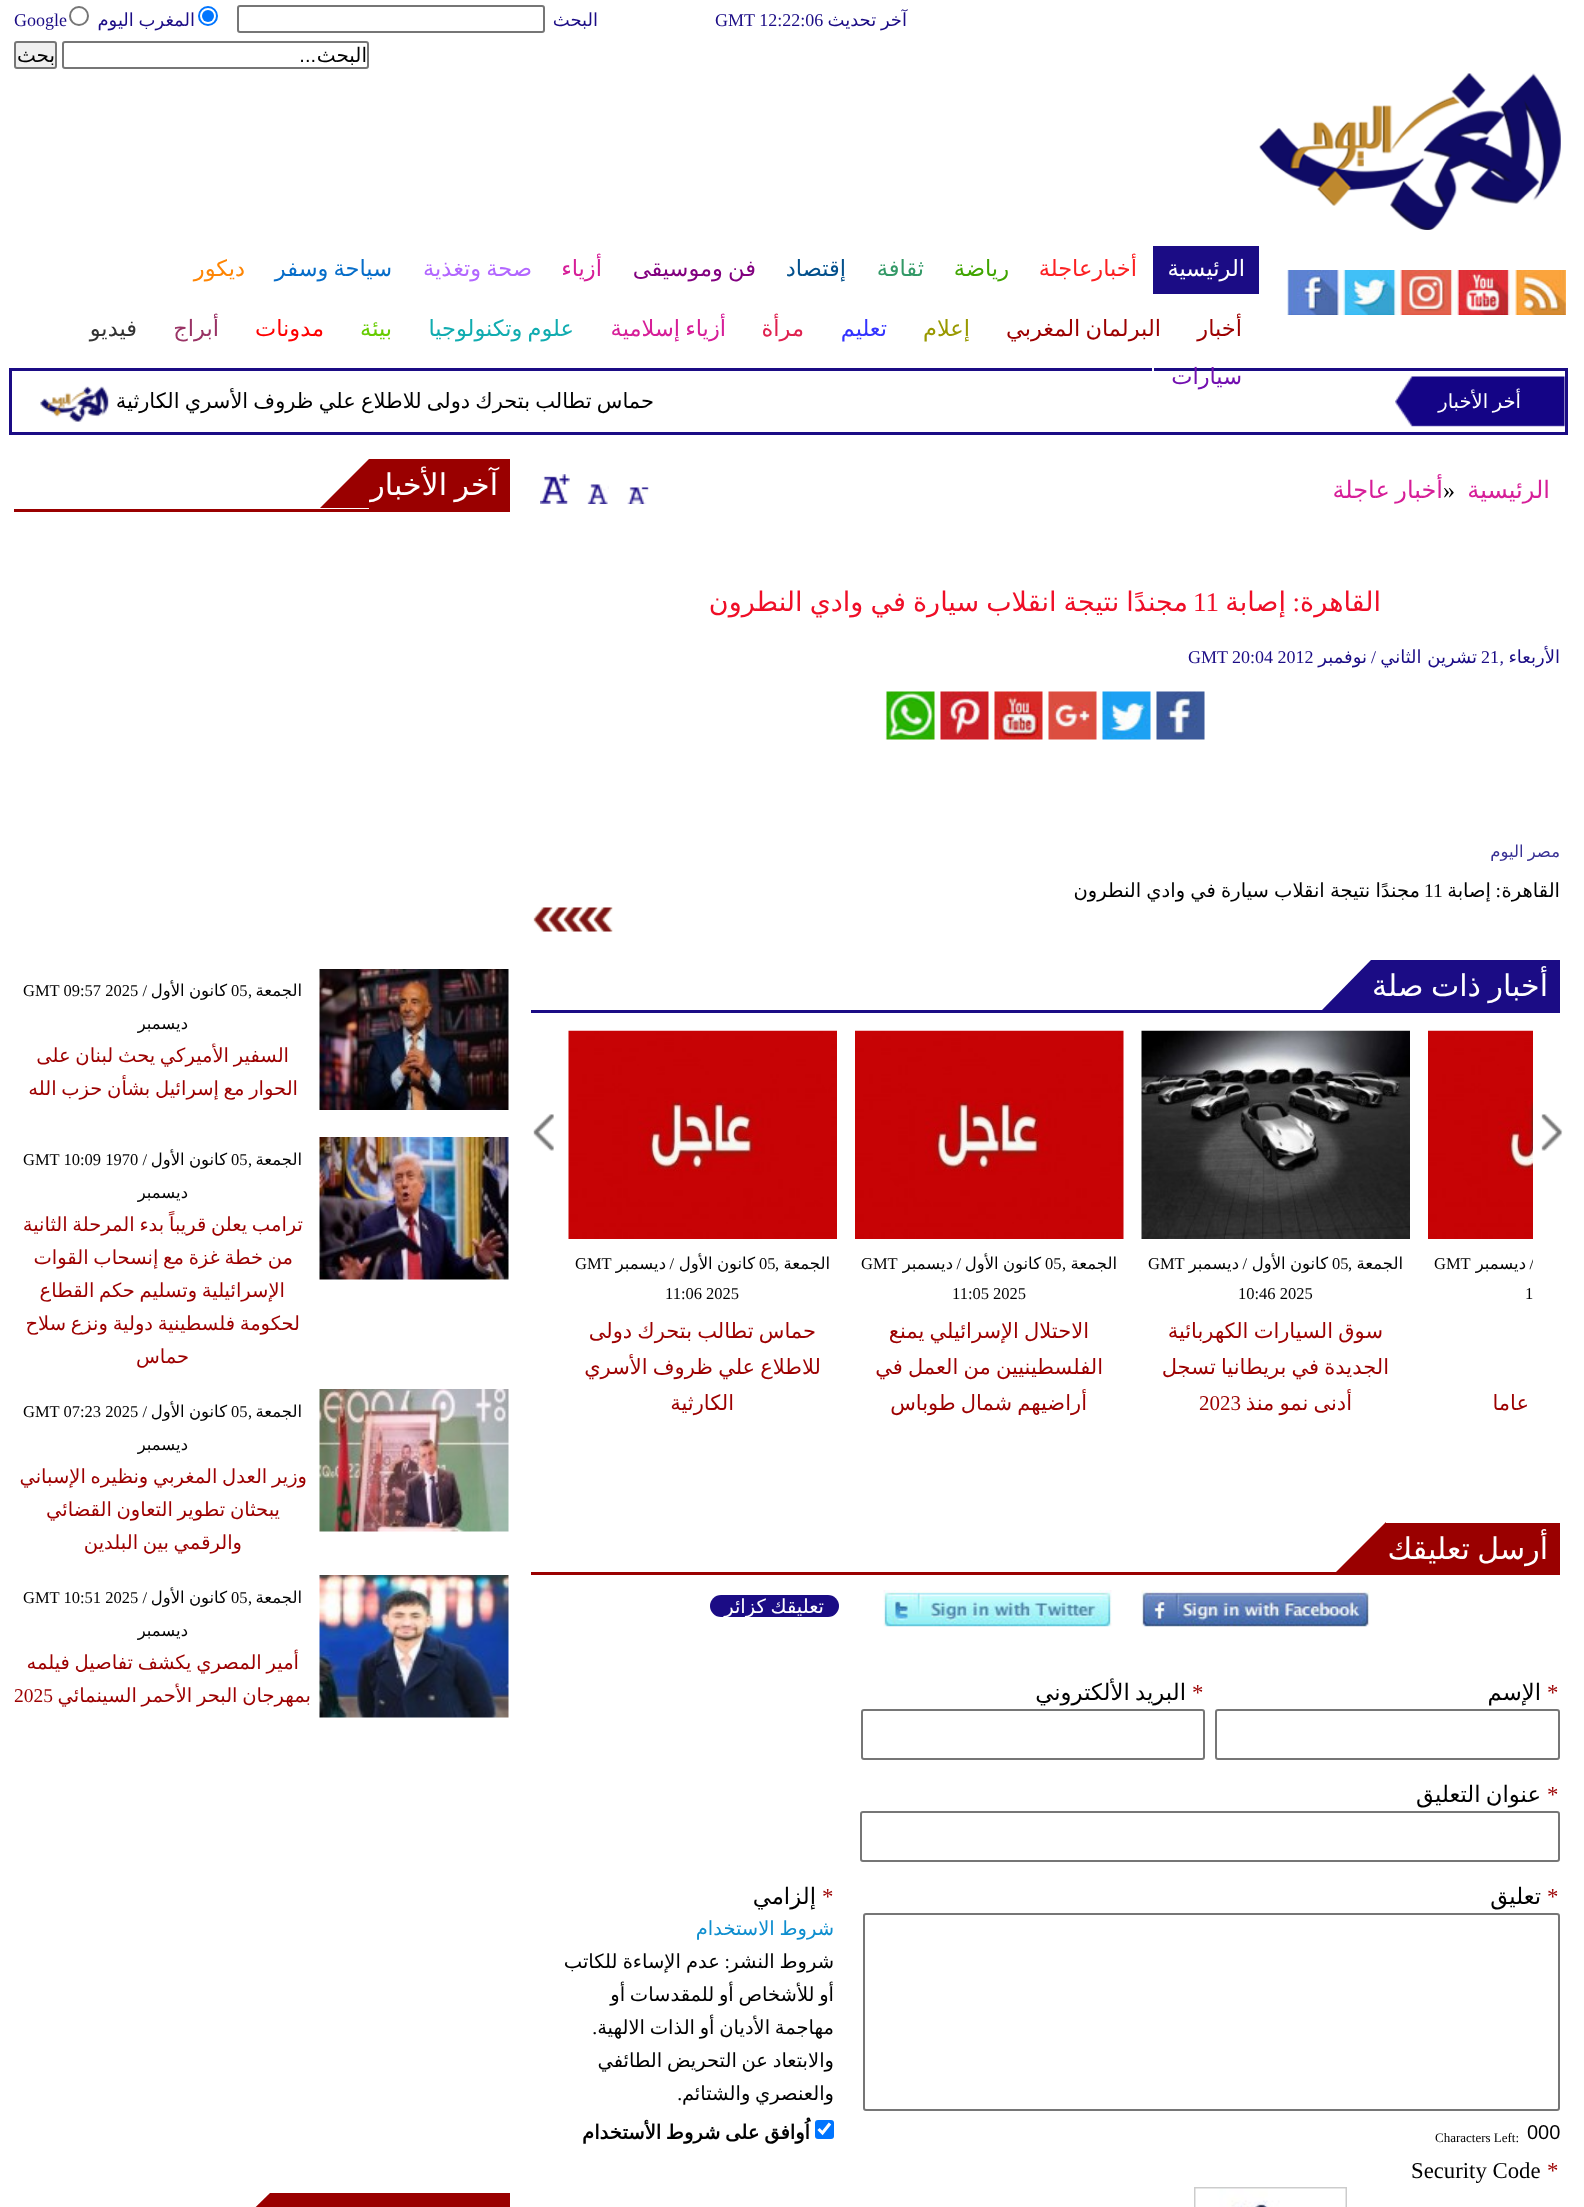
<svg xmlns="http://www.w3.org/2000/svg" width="1584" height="2207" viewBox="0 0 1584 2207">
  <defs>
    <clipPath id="clip1"><rect x="1415" y="1031" width="118" height="406"/></clipPath>
  </defs>
  <rect width="100%" height="100%" fill="#ffffff"/>
  <text x="907" y="26" word-spacing="-1" font-family="DejaVu Sans" font-size="18" direction="rtl" fill="#1b0c85">آخر تحديث</text>
  <text x="715" y="26" font-family="Liberation Serif" font-size="18" fill="#1b0c85">GMT 12:22:06</text>
  <text x="598" y="26" font-family="DejaVu Sans" font-size="18" direction="rtl" fill="#1b0c85">البحث</text>
  <rect x="238" y="6" width="306" height="26" rx="2" fill="none" stroke="#767676" stroke-width="2"/>
  <circle cx="208" cy="16" r="9" fill="none" stroke="#0075ff" stroke-width="2"/>
  <circle cx="208" cy="16" r="6" fill="#0075ff"/>
  <text x="195" y="26" word-spacing="-1" font-family="DejaVu Sans" font-size="18" direction="rtl" fill="#1b0c85">المغرب اليوم</text>
  <circle cx="79" cy="16" r="9" fill="none" stroke="#767676" stroke-width="2"/>
  <text x="14" y="26" font-family="Liberation Serif" font-size="18" fill="#1b0c85">Google</text>
  <rect x="63" y="42" width="305" height="26" rx="2" fill="none" stroke="#767676" stroke-width="2"/>
  <text x="367" y="62" font-family="DejaVu Sans" font-size="20" direction="rtl" fill="#000000">البحث</text>
  <text x="316" y="62" font-family="Liberation Sans" font-size="20" direction="rtl" fill="#000000">...</text>
  <rect x="15" y="42" width="41" height="26" rx="2" fill="#efefef" stroke="#767676" stroke-width="2"/>
  <text x="55" y="62" font-family="DejaVu Sans" font-size="20" direction="rtl" fill="#000000">بحث</text>
  <image x="1259" y="73" width="302" height="157" href="img1.png"/>
  <image x="1287" y="270" width="279" height="45" href="img2.png"/>
  <rect x="1153" y="246" width="106" height="48" fill="#1b0c85"/>
  <text x="1245" y="276" font-family="DejaVu Sans" font-size="22.5" direction="rtl" fill="#ffffff">الرئيسية</text>
  <text x="1137" y="276" font-family="DejaVu Sans" font-size="22.5" direction="rtl" fill="#fc2022">أخبارعاجلة</text>
  <text x="1009" y="276" font-family="DejaVu Sans" font-size="22.5" direction="rtl" fill="#40a501">رياضة</text>
  <text x="924" y="276" font-family="DejaVu Sans" font-size="22.5" direction="rtl" fill="#339967">ثقافة</text>
  <text x="846" y="276" font-family="DejaVu Sans" font-size="22.5" direction="rtl" fill="#03508c">إقتصاد</text>
  <text x="756" y="276" word-spacing="-2" font-family="DejaVu Sans" font-size="22.5" direction="rtl" fill="#81007f">فن وموسيقى</text>
  <text x="602" y="276" font-family="DejaVu Sans" font-size="22.5" direction="rtl" fill="#d61e98">أزياء</text>
  <text x="532" y="276" word-spacing="-2" font-family="DejaVu Sans" font-size="22.5" direction="rtl" fill="#b266ff">صحة وتغذية</text>
  <text x="392" y="276" word-spacing="-2" font-family="DejaVu Sans" font-size="22.5" direction="rtl" fill="#066dc9">سياحة وسفر</text>
  <text x="245" y="276" font-family="DejaVu Sans" font-size="22.5" direction="rtl" fill="#fe8503">ديكور</text>
  <text x="1242" y="336" font-family="DejaVu Sans" font-size="22.5" direction="rtl" fill="#9c0000">أخبار</text>
  <text x="1161" y="336" word-spacing="-2" font-family="DejaVu Sans" font-size="22.5" direction="rtl" fill="#9c0000">البرلمان المغربي</text>
  <text x="970" y="336" font-family="DejaVu Sans" font-size="22.5" direction="rtl" fill="#999900">إعلام</text>
  <text x="887" y="336" font-family="DejaVu Sans" font-size="22.5" direction="rtl" fill="#3333ff">تعليم</text>
  <text x="804" y="336" font-family="DejaVu Sans" font-size="22.5" direction="rtl" fill="#df214f">مرأة</text>
  <text x="726" y="336" word-spacing="-2" font-family="DejaVu Sans" font-size="22.5" direction="rtl" fill="#d61e98">أزياء إسلامية</text>
  <text x="574" y="336" word-spacing="-2" font-family="DejaVu Sans" font-size="22.5" direction="rtl" fill="#10acb0">علوم وتكنولوجيا</text>
  <text x="392" y="336" font-family="DejaVu Sans" font-size="22.5" direction="rtl" fill="#66cc00">بيئة</text>
  <text x="324" y="336" font-family="DejaVu Sans" font-size="22.5" direction="rtl" fill="#fe0000">مدونات</text>
  <text x="219" y="336" font-family="DejaVu Sans" font-size="22.5" direction="rtl" fill="#993365">أبراج</text>
  <text x="137" y="336" font-family="DejaVu Sans" font-size="22.5" direction="rtl" fill="#333333">فيديو</text>
  <rect x="10.5" y="369.5" width="1556" height="64" fill="none" stroke="#1b0c85" stroke-width="3"/>
  <rect x="1152" y="368" width="2" height="3" fill="#ffffff"/>
  <text x="1242" y="384" font-family="DejaVu Sans" font-size="22.5" direction="rtl" fill="#7310b0">سيارات</text>
  <image x="1395" y="376" width="170" height="51" href="img3.png"/>
  <text x="1521" y="408" word-spacing="-1.5" font-family="DejaVu Sans" font-size="19.5" direction="rtl" fill="#ffffff">أخر الأخبار</text>
  <image x="40" y="386" width="69" height="36" href="img4.png"/>
  <text x="654" y="408" word-spacing="-1.5" font-family="DejaVu Sans" font-size="21" direction="rtl" fill="#000000">حماس تطالب بتحرك دولى للاطلاع علي ظروف الأسري الكارثية</text>
  <text x="1550" y="498" font-family="DejaVu Sans" font-size="24" direction="rtl" fill="#d61e98">الرئيسية</text>
  <text x="1443" y="498" font-family="Liberation Serif" font-size="24" fill="#000000">»</text>
  <text x="1443" y="498" word-spacing="-2" font-family="DejaVu Sans" font-size="24" direction="rtl" fill="#d61e98">أخبار عاجلة</text>
  <image x="627" y="487" width="22" height="17" href="img5.png"/>
  <image x="587" y="484" width="22" height="20" href="img6.png"/>
  <image x="540" y="474" width="30" height="30" href="img7.png"/>
  <text x="1381" y="611" font-family="DejaVu Sans" font-size="27" direction="rtl" fill="#ef0e27">القاهرة</text>
  <text x="1300" y="611" font-family="Liberation Serif" font-size="27" direction="rtl" fill="#ef0e27">:</text>
  <text x="1286" y="611" font-family="DejaVu Sans" font-size="27" direction="rtl" fill="#ef0e27">إصابة</text>
  <text x="1193" y="611" font-family="Liberation Serif" font-size="27" fill="#ef0e27">11</text>
  <text x="1188" y="611" word-spacing="-1.5" font-family="DejaVu Sans" font-size="27" direction="rtl" fill="#ef0e27">مجندًا نتيجة انقلاب سيارة في وادي النطرون</text>
  <text x="1560" y="663" font-family="DejaVu Sans" font-size="18" direction="rtl" fill="#1b0c85">الأربعاء</text>
  <text x="1481" y="663" font-family="Liberation Serif" font-size="18" fill="#1b0c85">21</text>
  <text x="1477" y="663" font-family="DejaVu Sans" font-size="18" direction="rtl" fill="#1b0c85">تشرين الثاني</text>
  <text x="1376" y="663" font-family="Liberation Serif" font-size="18" direction="rtl" fill="#1b0c85">/</text>
  <text x="1367" y="663" font-family="DejaVu Sans" font-size="18" direction="rtl" fill="#1b0c85">نوفمبر</text>
  <text x="1232" y="663" font-family="Liberation Serif" font-size="18" fill="#1b0c85">20:04 2012</text>
  <text x="1188" y="663" font-family="Liberation Serif" font-size="18" fill="#1b0c85">GMT</text>
  <text x="1504" y="663" font-family="Liberation Serif" font-size="18" direction="rtl" fill="#1b0c85">,</text>
  <image x="885" y="691" width="320" height="49" href="img8.png"/>
  <text x="1560" y="857" word-spacing="-1" font-family="DejaVu Sans" font-size="16.5" direction="rtl" fill="#393194">مصر اليوم</text>
  <text x="1560" y="897" font-family="DejaVu Sans" font-size="19.5" direction="rtl" fill="#000000">القاهرة</text>
  <text x="1501" y="897" font-family="Liberation Serif" font-size="19.5" direction="rtl" fill="#000000">:</text>
  <text x="1491" y="897" font-family="DejaVu Sans" font-size="19.5" direction="rtl" fill="#000000">إصابة</text>
  <text x="1424" y="897" font-family="Liberation Serif" font-size="19.5" fill="#000000">11</text>
  <text x="1420" y="897" word-spacing="-1" font-family="DejaVu Sans" font-size="19.5" direction="rtl" fill="#000000">مجندًا نتيجة انقلاب سيارة في وادي النطرون</text>
  <image x="533" y="907" width="80" height="25" href="img9.png"/>
  <rect x="531" y="1010" width="1029" height="3" fill="#1b0c85"/>
  <rect x="1371" y="960" width="189" height="50" fill="#1b0c85"/>
  <text x="1548" y="996" word-spacing="-2" font-family="DejaVu Sans" font-size="30" direction="rtl" fill="#ffffff">أخبار ذات صلة</text>
  <path d="M1371 960V1010H1322Z" fill="#1b0c85"/>
  <image x="1541" y="1114" width="22" height="37" href="img10.png"/>
  <image x="533" y="1114" width="21" height="37" href="img11.png"/>
  <image x="1428" y="1030" width="105" height="209" href="img12.png"/>
  <g clip-path="url(#clip1)">
    <text x="1534" y="1269" font-family="Liberation Serif" font-size="16.5" direction="rtl" fill="#000000">/</text>
  </g>
  <text x="1526" y="1269" font-family="DejaVu Sans" font-size="16.5" direction="rtl" fill="#000000">ديسمبر</text>
  <text x="1434" y="1269" font-family="Liberation Serif" font-size="16.5" fill="#000000">GMT</text>
  <text x="1525" y="1299" font-family="Liberation Serif" font-size="16.5" fill="#000000">1</text>
  <text x="1529" y="1410" font-family="DejaVu Sans" font-size="21" direction="rtl" fill="#9c0000">عاما</text>
  <image x="1141" y="1030" width="269" height="209" href="img13.png"/>
  <text x="1403" y="1269" font-family="DejaVu Sans" font-size="16.5" direction="rtl" fill="#000000">الجمعة</text>
  <text x="1352" y="1269" font-family="Liberation Serif" font-size="16.5" direction="rtl" fill="#000000">,</text>
  <text x="1332" y="1269" font-family="Liberation Serif" font-size="16.5" fill="#000000">05</text>
  <text x="1328" y="1269" word-spacing="-1" font-family="DejaVu Sans" font-size="16.5" direction="rtl" fill="#000000">كانون الأول</text>
  <text x="1247" y="1269" font-family="Liberation Serif" font-size="16.5" direction="rtl" fill="#000000">/</text>
  <text x="1239" y="1269" font-family="DejaVu Sans" font-size="16.5" direction="rtl" fill="#000000">ديسمبر</text>
  <text x="1148" y="1269" font-family="Liberation Serif" font-size="16.5" fill="#000000">GMT</text>
  <text x="1238" y="1299" font-family="Liberation Serif" font-size="16.5" fill="#000000">10:46 2025</text>
  <text x="1383" y="1338" word-spacing="-1.5" font-family="DejaVu Sans" font-size="21" direction="rtl" fill="#9c0000">سوق السيارات الكهربائية</text>
  <text x="1389" y="1374" word-spacing="-1.5" font-family="DejaVu Sans" font-size="21" direction="rtl" fill="#9c0000">الجديدة في بريطانيا تسجل</text>
  <text x="1352" y="1410" word-spacing="-1.5" font-family="DejaVu Sans" font-size="21" direction="rtl" fill="#9c0000">أدنى نمو منذ</text>
  <text x="1199" y="1410" font-family="Liberation Serif" font-size="21" fill="#9c0000">2023</text>
  <image x="855" y="1030" width="269" height="209" href="img14.png"/>
  <text x="1117" y="1269" font-family="DejaVu Sans" font-size="16.5" direction="rtl" fill="#000000">الجمعة</text>
  <text x="1066" y="1269" font-family="Liberation Serif" font-size="16.5" direction="rtl" fill="#000000">,</text>
  <text x="1045" y="1269" font-family="Liberation Serif" font-size="16.5" fill="#000000">05</text>
  <text x="1041" y="1269" word-spacing="-1" font-family="DejaVu Sans" font-size="16.5" direction="rtl" fill="#000000">كانون الأول</text>
  <text x="961" y="1269" font-family="Liberation Serif" font-size="16.5" direction="rtl" fill="#000000">/</text>
  <text x="953" y="1269" font-family="DejaVu Sans" font-size="16.5" direction="rtl" fill="#000000">ديسمبر</text>
  <text x="861" y="1269" font-family="Liberation Serif" font-size="16.5" fill="#000000">GMT</text>
  <text x="952" y="1299" font-family="Liberation Serif" font-size="16.5" fill="#000000">11:05 2025</text>
  <text x="1089" y="1338" word-spacing="-1.5" font-family="DejaVu Sans" font-size="21" direction="rtl" fill="#9c0000">الاحتلال الإسرائيلي يمنع</text>
  <text x="1103" y="1374" word-spacing="-1.5" font-family="DejaVu Sans" font-size="21" direction="rtl" fill="#9c0000">الفلسطينيين من العمل في</text>
  <text x="1087" y="1410" word-spacing="-1.5" font-family="DejaVu Sans" font-size="21" direction="rtl" fill="#9c0000">أراضيهم شمال طوباس</text>
  <image x="568" y="1030" width="269" height="209" href="img15.png"/>
  <text x="830" y="1269" font-family="DejaVu Sans" font-size="16.5" direction="rtl" fill="#000000">الجمعة</text>
  <text x="779" y="1269" font-family="Liberation Serif" font-size="16.5" direction="rtl" fill="#000000">,</text>
  <text x="759" y="1269" font-family="Liberation Serif" font-size="16.5" fill="#000000">05</text>
  <text x="755" y="1269" word-spacing="-1" font-family="DejaVu Sans" font-size="16.5" direction="rtl" fill="#000000">كانون الأول</text>
  <text x="674" y="1269" font-family="Liberation Serif" font-size="16.5" direction="rtl" fill="#000000">/</text>
  <text x="666" y="1269" font-family="DejaVu Sans" font-size="16.5" direction="rtl" fill="#000000">ديسمبر</text>
  <text x="575" y="1269" font-family="Liberation Serif" font-size="16.5" fill="#000000">GMT</text>
  <text x="665" y="1299" font-family="Liberation Serif" font-size="16.5" fill="#000000">11:06 2025</text>
  <text x="816" y="1338" word-spacing="-1.5" font-family="DejaVu Sans" font-size="21" direction="rtl" fill="#9c0000">حماس تطالب بتحرك دولى</text>
  <text x="821" y="1374" word-spacing="-1.5" font-family="DejaVu Sans" font-size="21" direction="rtl" fill="#9c0000">للاطلاع علي ظروف الأسري</text>
  <text x="734" y="1410" font-family="DejaVu Sans" font-size="21" direction="rtl" fill="#9c0000">الكارثية</text>
  <rect x="531" y="1572" width="1029" height="3" fill="#9a0000"/>
  <rect x="1386" y="1523" width="174" height="49" fill="#9a0000"/>
  <text x="1548" y="1559" word-spacing="-2" font-family="DejaVu Sans" font-size="30" direction="rtl" fill="#ffffff">أرسل تعليقك</text>
  <path d="M1386 1522V1572H1336Z" fill="#9a0000"/>
  <image x="1141" y="1590" width="229" height="37" href="img16.png"/>
  <image x="883" y="1590" width="229" height="37" href="img17.png"/>
  <rect x="710" y="1595" width="129" height="22" rx="11" fill="#1b0c85"/>
  <text x="824" y="1613" word-spacing="-1.5" font-family="DejaVu Sans" font-size="19.5" direction="rtl" fill="#ffffff">تعليقك كزائر</text>
  <text x="1547" y="1700" font-family="Liberation Serif" font-size="22.75" fill="#9c0000">*</text>
  <text x="1541" y="1700" font-family="DejaVu Sans" font-size="22.75" direction="rtl" fill="#000000">الإسم</text>
  <rect x="1216" y="1710" width="343" height="49" rx="2" fill="none" stroke="#767676" stroke-width="2"/>
  <text x="1192" y="1700" font-family="Liberation Serif" font-size="22.75" fill="#9c0000">*</text>
  <text x="1186" y="1700" word-spacing="-2" font-family="DejaVu Sans" font-size="22.75" direction="rtl" fill="#000000">البريد الألكتروني</text>
  <rect x="862" y="1710" width="342" height="49" rx="2" fill="none" stroke="#767676" stroke-width="2"/>
  <text x="1547" y="1802" font-family="Liberation Serif" font-size="22.75" fill="#9c0000">*</text>
  <text x="1541" y="1802" word-spacing="-2" font-family="DejaVu Sans" font-size="22.75" direction="rtl" fill="#000000">عنوان التعليق</text>
  <rect x="861" y="1812" width="698" height="49" rx="2" fill="none" stroke="#767676" stroke-width="2"/>
  <text x="1547" y="1904" font-family="Liberation Serif" font-size="22.75" fill="#9c0000">*</text>
  <text x="1541" y="1904" font-family="DejaVu Sans" font-size="22.75" direction="rtl" fill="#000000">تعليق</text>
  <rect x="864" y="1914" width="695" height="196" rx="2" fill="none" stroke="#767676" stroke-width="2"/>
  <text x="1527" y="2139" font-family="Liberation Sans" font-size="20" fill="#000000">000</text>
  <text x="1435" y="2142" font-family="Liberation Serif" font-size="13" fill="#000000">Characters Left:</text>
  <text x="822" y="1904" font-family="Liberation Serif" font-size="22.75" fill="#9c0000">*</text>
  <text x="816" y="1904" font-family="DejaVu Sans" font-size="22.75" direction="rtl" fill="#000000">إلزامي</text>
  <text x="834" y="1935" word-spacing="-1.5" font-family="DejaVu Sans" font-size="19.5" direction="rtl" fill="#0e8ecf">شروط الاستخدام</text>
  <text x="730" y="1968" font-family="Liberation Serif" font-size="19.5" direction="rtl" fill="#000000">:</text>
  <text x="834" y="1968" word-spacing="-1.5" font-family="DejaVu Sans" font-size="19.5" direction="rtl" fill="#000000">شروط النشر</text>
  <text x="720" y="1968" word-spacing="-1" font-family="DejaVu Sans" font-size="19.5" direction="rtl" fill="#000000">عدم الإساءة للكاتب</text>
  <text x="834" y="2001" word-spacing="-1.5" font-family="DejaVu Sans" font-size="19.5" direction="rtl" fill="#000000">أو للأشخاص أو للمقدسات أو</text>
  <text x="834" y="2034" word-spacing="-1.5" font-family="DejaVu Sans" font-size="19.5" direction="rtl" fill="#000000">مهاجمة الأديان أو الذات الالهية</text>
  <text x="597" y="2034" font-family="Liberation Serif" font-size="19.5" direction="rtl" fill="#000000">.</text>
  <text x="834" y="2067" word-spacing="-1.5" font-family="DejaVu Sans" font-size="19.5" direction="rtl" fill="#000000">والابتعاد عن التحريض الطائفي</text>
  <text x="834" y="2100" word-spacing="-1.5" font-family="DejaVu Sans" font-size="19.5" direction="rtl" fill="#000000">والعنصري والشتائم</text>
  <text x="682" y="2100" font-family="Liberation Serif" font-size="19.5" direction="rtl" fill="#000000">.</text>
  <rect x="815" y="2120" width="19" height="19" rx="3" fill="#0075ff"/>
  <path d="M818.5 2129L822.5 2133L830 2123.5" fill="none" stroke="#ffffff" stroke-width="3.1"/>
  <text x="810" y="2139" word-spacing="-1.5" font-family="DejaVu Sans" font-size="19.5" font-weight="bold" direction="rtl" fill="#000000">اُوافق على شروط الأستخدام</text>
  <text x="1547" y="2178" font-family="Liberation Serif" font-size="22.75" fill="#9c0000">*</text>
  <text x="1411" y="2178" font-family="Liberation Serif" font-size="22.75" fill="#000000">Security Code</text>
  <rect x="1195" y="2188" width="151" height="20" fill="none" stroke="#cccccc" stroke-width="2"/>
  <image x="1195" y="2188" width="151" height="19" href="img18.png"/>
  <rect x="14" y="509" width="496" height="3" fill="#9a0000"/>
  <rect x="369" y="459" width="141" height="50" fill="#9a0000"/>
  <text x="498" y="495" word-spacing="-2" font-family="DejaVu Sans" font-size="30" direction="rtl" fill="#ffffff">آخر الأخبار</text>
  <path d="M369 459V508H320Z" fill="#9a0000"/>
  <image x="319" y="969" width="190" height="141" href="img19.png"/>
  <text x="302" y="996" font-family="DejaVu Sans" font-size="16.5" direction="rtl" fill="#000000">الجمعة</text>
  <text x="252" y="996" font-family="Liberation Serif" font-size="16.5" direction="rtl" fill="#000000">,</text>
  <text x="231" y="996" font-family="Liberation Serif" font-size="16.5" fill="#000000">05</text>
  <text x="227" y="996" word-spacing="-1" font-family="DejaVu Sans" font-size="16.5" direction="rtl" fill="#000000">كانون الأول</text>
  <text x="147" y="996" font-family="Liberation Serif" font-size="16.5" direction="rtl" fill="#000000">/</text>
  <text x="23" y="996" font-family="Liberation Serif" font-size="16.5" fill="#000000">GMT 09:57 2025</text>
  <text x="188" y="1029" font-family="DejaVu Sans" font-size="16.5" direction="rtl" fill="#000000">ديسمبر</text>
  <text x="289" y="1062" word-spacing="-1.5" font-family="DejaVu Sans" font-size="19.5" direction="rtl" fill="#9c0000">السفير الأميركي يحث لبنان على</text>
  <text x="298" y="1095" word-spacing="-1.5" font-family="DejaVu Sans" font-size="19.5" direction="rtl" fill="#9c0000">الحوار مع إسرائيل بشأن حزب الله</text>
  <image x="319" y="1137" width="190" height="143" href="img20.png"/>
  <text x="302" y="1165" font-family="DejaVu Sans" font-size="16.5" direction="rtl" fill="#000000">الجمعة</text>
  <text x="252" y="1165" font-family="Liberation Serif" font-size="16.5" direction="rtl" fill="#000000">,</text>
  <text x="231" y="1165" font-family="Liberation Serif" font-size="16.5" fill="#000000">05</text>
  <text x="227" y="1165" word-spacing="-1" font-family="DejaVu Sans" font-size="16.5" direction="rtl" fill="#000000">كانون الأول</text>
  <text x="147" y="1165" font-family="Liberation Serif" font-size="16.5" direction="rtl" fill="#000000">/</text>
  <text x="23" y="1165" font-family="Liberation Serif" font-size="16.5" fill="#000000">GMT 10:09 1970</text>
  <text x="188" y="1198" font-family="DejaVu Sans" font-size="16.5" direction="rtl" fill="#000000">ديسمبر</text>
  <text x="303" y="1231" word-spacing="-1.5" font-family="DejaVu Sans" font-size="19.5" direction="rtl" fill="#9c0000">ترامب يعلن قريباً بدء المرحلة الثانية</text>
  <text x="293" y="1264" word-spacing="-1.5" font-family="DejaVu Sans" font-size="19.5" direction="rtl" fill="#9c0000">من خطة غزة مع إنسحاب القوات</text>
  <text x="285" y="1297" word-spacing="-1.5" font-family="DejaVu Sans" font-size="19.5" direction="rtl" fill="#9c0000">الإسرائيلية وتسليم حكم القطاع</text>
  <text x="300" y="1330" word-spacing="-1.5" font-family="DejaVu Sans" font-size="19.5" direction="rtl" fill="#9c0000">لحكومة فلسطينية دولية ونزع سلاح</text>
  <text x="189" y="1363" font-family="DejaVu Sans" font-size="19.5" direction="rtl" fill="#9c0000">حماس</text>
  <image x="319" y="1389" width="190" height="143" href="img21.png"/>
  <text x="302" y="1417" font-family="DejaVu Sans" font-size="16.5" direction="rtl" fill="#000000">الجمعة</text>
  <text x="252" y="1417" font-family="Liberation Serif" font-size="16.5" direction="rtl" fill="#000000">,</text>
  <text x="231" y="1417" font-family="Liberation Serif" font-size="16.5" fill="#000000">05</text>
  <text x="227" y="1417" word-spacing="-1" font-family="DejaVu Sans" font-size="16.5" direction="rtl" fill="#000000">كانون الأول</text>
  <text x="147" y="1417" font-family="Liberation Serif" font-size="16.5" direction="rtl" fill="#000000">/</text>
  <text x="23" y="1417" font-family="Liberation Serif" font-size="16.5" fill="#000000">GMT 07:23 2025</text>
  <text x="188" y="1450" font-family="DejaVu Sans" font-size="16.5" direction="rtl" fill="#000000">ديسمبر</text>
  <text x="307" y="1483" word-spacing="-1.5" font-family="DejaVu Sans" font-size="19.5" direction="rtl" fill="#9c0000">وزير العدل المغربي ونظيره الإسباني</text>
  <text x="280" y="1516" word-spacing="-1.5" font-family="DejaVu Sans" font-size="19.5" direction="rtl" fill="#9c0000">يبحثان تطوير التعاون القضائي</text>
  <text x="242" y="1549" word-spacing="-1.5" font-family="DejaVu Sans" font-size="19.5" direction="rtl" fill="#9c0000">والرقمي بين البلدين</text>
  <image x="319" y="1575" width="190" height="143" href="img22.png"/>
  <text x="302" y="1603" font-family="DejaVu Sans" font-size="16.5" direction="rtl" fill="#000000">الجمعة</text>
  <text x="252" y="1603" font-family="Liberation Serif" font-size="16.5" direction="rtl" fill="#000000">,</text>
  <text x="231" y="1603" font-family="Liberation Serif" font-size="16.5" fill="#000000">05</text>
  <text x="227" y="1603" word-spacing="-1" font-family="DejaVu Sans" font-size="16.5" direction="rtl" fill="#000000">كانون الأول</text>
  <text x="147" y="1603" font-family="Liberation Serif" font-size="16.5" direction="rtl" fill="#000000">/</text>
  <text x="23" y="1603" font-family="Liberation Serif" font-size="16.5" fill="#000000">GMT 10:51 2025</text>
  <text x="188" y="1636" font-family="DejaVu Sans" font-size="16.5" direction="rtl" fill="#000000">ديسمبر</text>
  <text x="299" y="1669" word-spacing="-1.5" font-family="DejaVu Sans" font-size="19.5" direction="rtl" fill="#9c0000">أمير المصري يكشف تفاصيل فيلمه</text>
  <text x="311" y="1702" word-spacing="-1.5" font-family="DejaVu Sans" font-size="19.5" direction="rtl" fill="#9c0000">بمهرجان البحر الأحمر السينمائي</text>
  <text x="14" y="1702" font-family="Liberation Serif" font-size="19.5" fill="#9c0000">2025</text>
  <rect x="270" y="2193" width="240" height="14" fill="#9a0000"/>
  <path d="M270 2193V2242H220Z" fill="#9a0000"/>
</svg>
